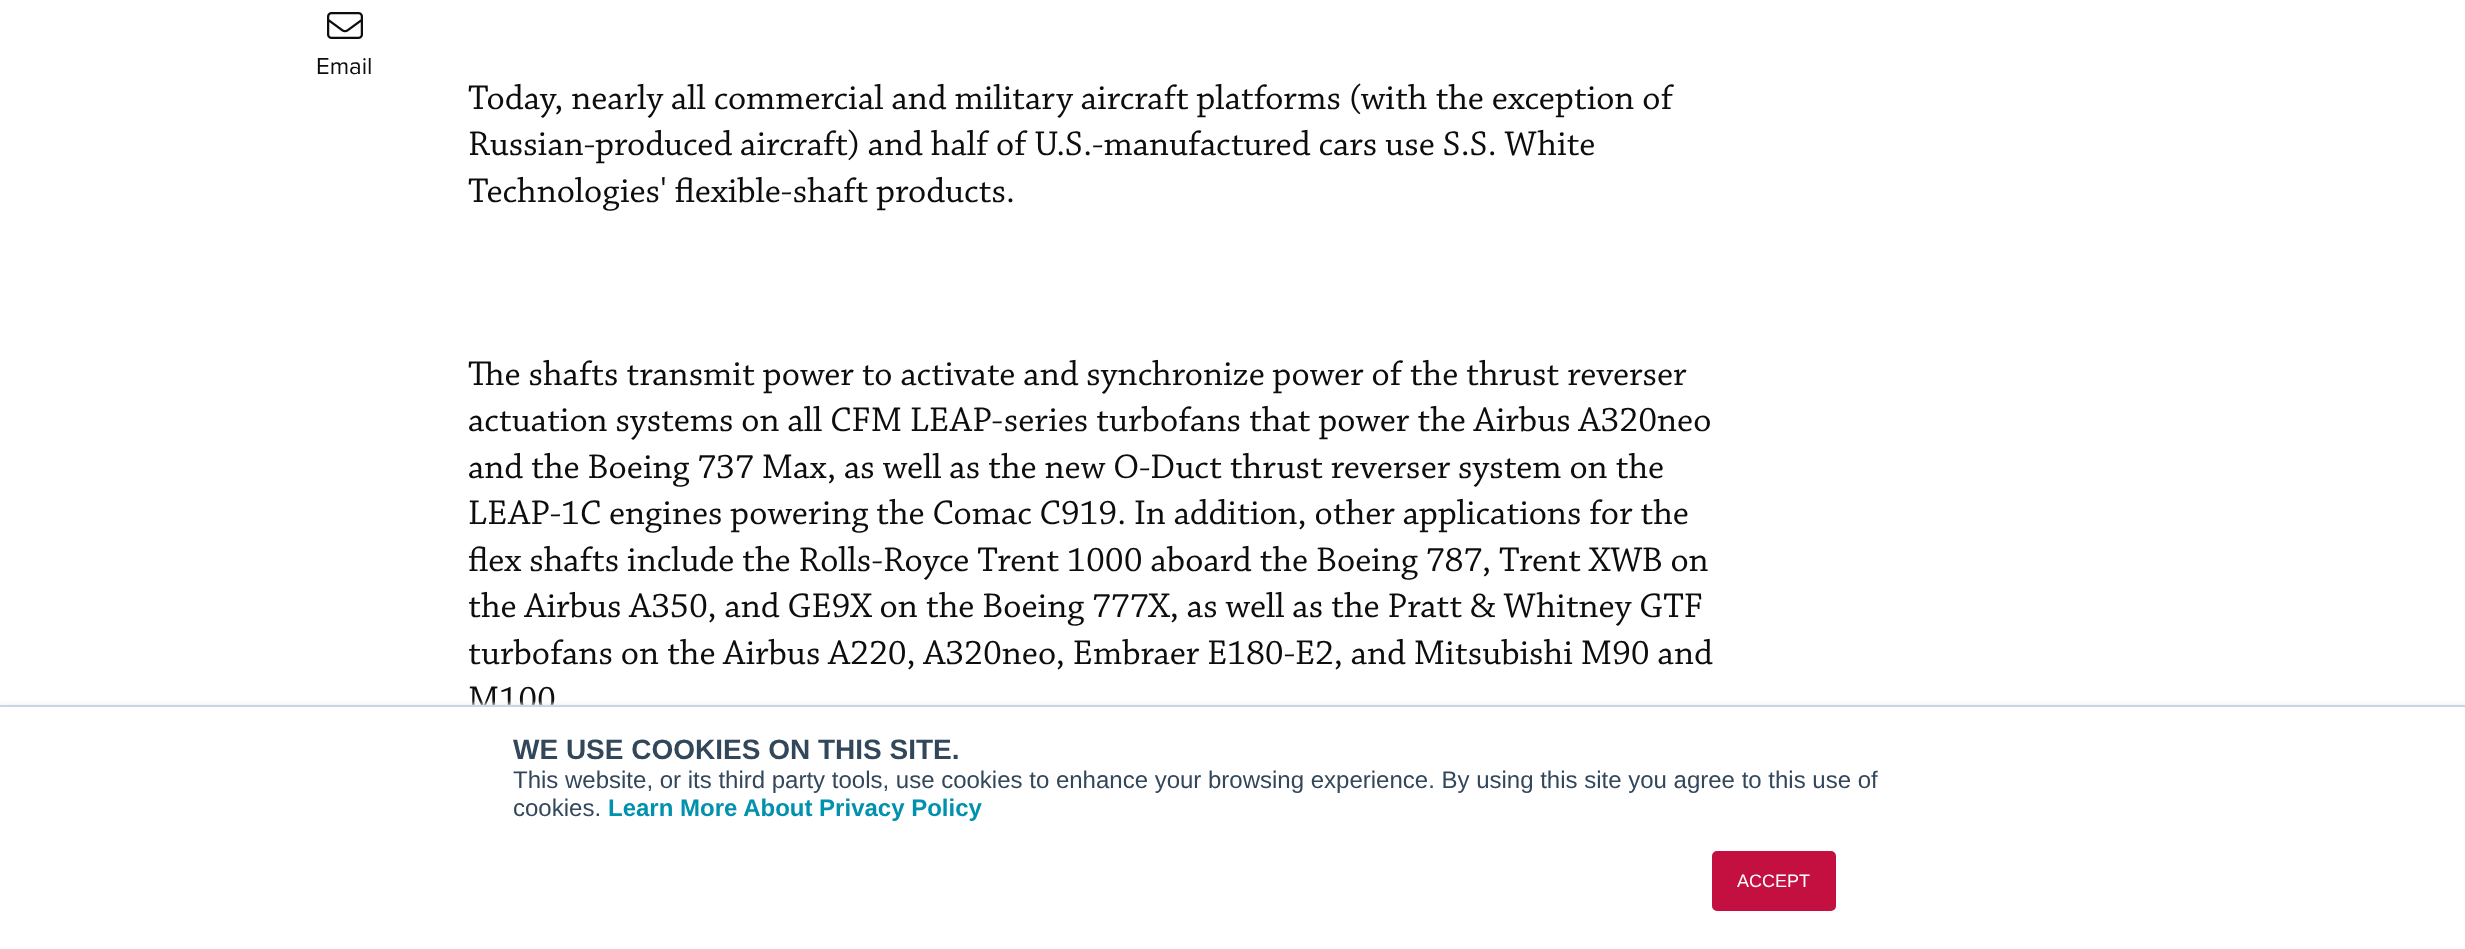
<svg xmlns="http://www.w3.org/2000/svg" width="2465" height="949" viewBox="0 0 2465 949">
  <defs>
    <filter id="blur1" x="-50%" y="-200%" width="200%" height="500%"><feGaussianBlur stdDeviation="2"/></filter>
  </defs>
  <rect width="100%" height="100%" fill="#ffffff"/>
  <image x="327" y="12" width="36" height="27" href="img1.png"/>
  <text x="316" y="74" font-family="Proxima Nova" font-size="24" fill="#0d0d0d">Email</text>
  <text x="468" y="109" font-family="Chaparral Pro" font-size="36" fill="#0d0d0d">Today, nearly all commercial and military aircraft platforms (with the exception of</text>
  <text x="468" y="155" font-family="Chaparral Pro" font-size="36" fill="#0d0d0d">Russian-produced aircraft) and half of U.S.-manufactured cars use S.S. White</text>
  <text x="468" y="202" font-family="Chaparral Pro" font-size="36" fill="#0d0d0d">Technologies' flexible-shaft products.</text>
  <text x="468" y="385" font-family="Chaparral Pro" font-size="36" fill="#0d0d0d">The shafts transmit power to activate and synchronize power of the thrust reverser</text>
  <text x="468" y="431" font-family="Chaparral Pro" font-size="36" fill="#0d0d0d">actuation systems on all CFM LEAP-series turbofans that power the Airbus A320neo</text>
  <text x="468" y="478" font-family="Chaparral Pro" font-size="36" fill="#0d0d0d">and the Boeing 737 Max, as well as the new O-Duct thrust reverser system on the</text>
  <text x="468" y="524" font-family="Chaparral Pro" font-size="36" fill="#0d0d0d">LEAP-1C engines powering the Comac C919. In addition, other applications for the</text>
  <text x="468" y="571" font-family="Chaparral Pro" font-size="36" fill="#0d0d0d">flex shafts include the Rolls-Royce Trent 1000 aboard the Boeing 787, Trent XWB on</text>
  <text x="468" y="617" font-family="Chaparral Pro" font-size="36" fill="#0d0d0d">the Airbus A350, and GE9X on the Boeing 777X, as well as the Pratt &amp; Whitney GTF</text>
  <text x="468" y="664" font-family="Chaparral Pro" font-size="36" fill="#0d0d0d">turbofans on the Airbus A220, A320neo, Embraer E180-E2, and Mitsubishi M90 and</text>
  <text x="468" y="710" font-family="Chaparral Pro" font-size="36" fill="#0d0d0d">M100</text>
  <rect x="0" y="704" width="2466" height="244" fill="#eaf0f6" filter="url(#blur1)"/>
  <rect x="0" y="707" width="2465" height="242" fill="#ffffff"/>
  <rect x="0" y="705" width="2465" height="2" fill="#cbd6e2"/>
  <text x="513" y="759" font-family="Liberation Sans" font-size="28" font-weight="bold" fill="#33475b">WE USE COOKIES ON THIS SITE.</text>
  <text x="513" y="788" font-family="Liberation Sans" font-size="24" fill="#33475b">This website, or its third party tools, use cookies to enhance your browsing experience. By using this site you agree to this use of</text>
  <text x="513" y="816" font-family="Liberation Sans" font-size="24" fill="#33475b">cookies.</text>
  <text x="608" y="816" font-family="Liberation Sans" font-size="24" font-weight="bold" fill="#0091ae">Learn More About Privacy Policy</text>
  <rect x="1713" y="852" width="122" height="58" rx="4" fill="#c31040" stroke="#c31040" stroke-width="2"/>
  <text x="1737" y="887" font-family="Liberation Sans" font-size="18" fill="#ffffff">ACCEPT</text>
</svg>
